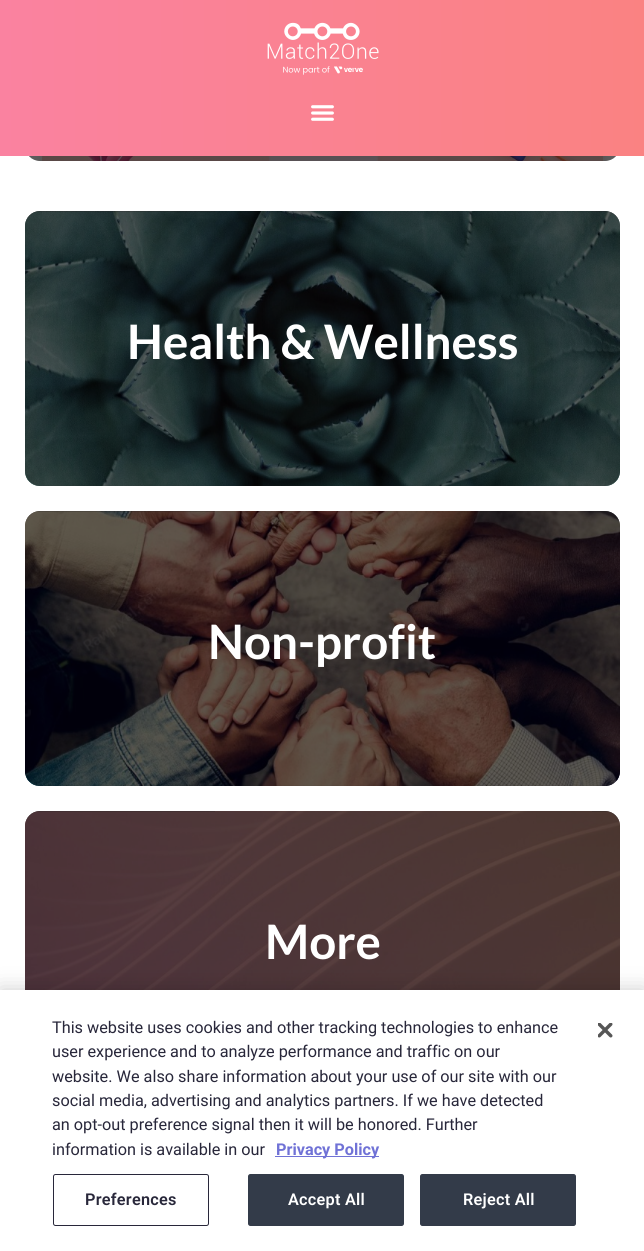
import math
import cairo



def draw_spaced(context, x, y, s, letter, word):
    context.move_to(x, y)
    for ch in s:
        context.show_text(ch)
        context.rel_move_to(letter + word * (ch == ' '), 0)


def rounded_rect(context, x, y, w, h, r):
    context.new_sub_path()
    for i, (u, v) in enumerate([(x + w - r, y + h - r), (x + r, y + h - r), (x + r, y + r), (x + w - r, y + r)]):
        context.arc(u, v, r, i * math.pi / 2, (i + 1) * math.pi / 2)
    context.close_path()


def draw_shadow(context, x, y, w, h, r, blur, alpha):
    context.push_group_with_content(cairo.Content.ALPHA)
    context.set_operator(cairo.Operator.SOURCE)
    for i in range(15, -16, -2):
        e = blur * i / 6
        if min(w, h) + 2 * e > 0:
            context.set_source_rgba(0, 0, 0, alpha * math.erfc((i - 1) / 8.5) / 2)
            rounded_rect(context, x - e, y - e, w + 2 * e, h + 2 * e, max(0, min(r + e + blur * .6, min(w, h) / 2 + e)))
            context.fill()
    context.mask(context.pop_group())


def draw_image(context, path, x, y, w, h):
    context.save()
    context.set_source_surface(cairo.ImageSurface.create_from_png(path), x, y)
    context.rectangle(x, y, w, h)
    context.fill()
    context.restore()


def draw(context):
    context.set_source_rgb(1, 1, 1)
    context.paint()
    draw_image(context, "images/3.png", 28, 156, 589, 5)
    context.set_source_rgba(2 / 255, 1 / 255, 1 / 255, 0.63)
    rounded_rect(context, 25, -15, 595, 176, 15)
    context.fill()
    gradient = cairo.LinearGradient(0, 78, 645, 78)
    gradient.add_color_stop_rgba(0, 250 / 255, 130 / 255, 160 / 255, 1)
    gradient.add_color_stop_rgba(1, 250 / 255, 130 / 255, 130 / 255, 1)
    context.set_source(gradient)
    context.rectangle(0, 0, 644, 156)
    context.fill()
    draw_image(context, "images/1.png", 267, 22, 112, 53)
    draw_image(context, "images/2.png", 311, 105, 23, 16)
    context.set_source_rgb(96 / 255, 95 / 255, 95 / 255)
    rounded_rect(context, 25, 211, 595, 275, 15)
    context.fill()
    draw_image(context, "images/4.png", 25, 211, 595, 275)
    context.set_source_rgba(2 / 255, 1 / 255, 1 / 255, 0.63)
    rounded_rect(context, 25, 211, 595, 275, 15)
    context.fill()
    context.set_source_rgb(96 / 255, 95 / 255, 95 / 255)
    rounded_rect(context, 25, 511, 595, 275, 15)
    context.fill()
    draw_image(context, "images/5.png", 25, 511, 595, 275)
    context.set_source_rgba(2 / 255, 1 / 255, 1 / 255, 0.63)
    rounded_rect(context, 25, 511, 595, 275, 15)
    context.fill()
    context.set_source_rgb(96 / 255, 95 / 255, 95 / 255)
    rounded_rect(context, 25, 811, 595, 275, 15)
    context.fill()
    draw_image(context, "images/6.png", 25, 811, 595, 179)
    context.set_source_rgba(2 / 255, 1 / 255, 1 / 255, 0.63)
    rounded_rect(context, 25, 811, 595, 275, 15)
    context.fill()
    context.set_source_rgb(0, 0, 0)
    draw_shadow(context, 0, 990, 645, 261, 0, 11, 0.2)
    context.set_source_rgb(1, 1, 1)
    context.rectangle(0, 990, 644, 261)
    context.fill()
    context.set_source_rgb(112 / 255, 114 / 255, 214 / 255)
    context.rectangle(275, 1156, 104, 1)
    context.fill()
    rounded_rect(context, 53.5, 1174.5, 155, 51, 2)
    context.set_source_rgb(40 / 255, 39 / 255, 58 / 255)
    context.set_line_width(1)
    context.stroke()
    context.set_source_rgb(51 / 255, 59 / 255, 73 / 255)
    rounded_rect(context, 248.5, 1174.5, 155, 51, 2)
    context.fill_preserve()
    context.stroke()
    rounded_rect(context, 420.5, 1174.5, 155, 51, 2)
    context.fill_preserve()
    context.stroke()
    draw_image(context, "images/7.png", 598, 1023, 15, 15)
    context.select_font_face("Lato", cairo.FontSlant.NORMAL, cairo.FontWeight.BOLD)
    context.set_font_size(47.5)
    context.set_source_rgb(1, 1, 1)
    context.move_to(127, 359)
    context.show_text("Health & Wellness")
    context.move_to(208, 659)
    context.show_text("Non-profit")
    context.move_to(265, 959)
    context.show_text("More")
    context.select_font_face("Roboto")
    context.set_font_size(16.25)
    context.set_source_rgb(40 / 255, 39 / 255, 58 / 255)
    context.move_to(52, 1033)
    context.show_text("This website uses cookies and other tracking technologies to enhance")
    context.move_to(52, 1057)
    context.show_text("user experience and to analyze performance and traffic on our")
    context.move_to(52, 1082)
    context.show_text("website. We also share information about your use of our site with our")
    context.move_to(52, 1106)
    context.show_text("social media, advertising and analytics partners. If we have detected")
    context.move_to(52, 1130)
    context.show_text("an opt-out preference signal then it will be honored. Further")
    context.move_to(52, 1155)
    context.show_text("information is available in our")
    context.select_font_face("Roboto", cairo.FontSlant.NORMAL, cairo.FontWeight.BOLD)
    context.set_source_rgb(112 / 255, 114 / 255, 214 / 255)
    context.move_to(276, 1155)
    context.show_text("Privacy Policy")
    context.select_font_face("Roboto SemiBold")
    context.set_source_rgb(40 / 255, 39 / 255, 58 / 255)
    draw_spaced(context, 85, 1205, "Preferences", 0.25, 0)
    context.set_source_rgb(1, 1, 1)
    draw_spaced(context, 288, 1205, "Accept All", 0.25, 0)
    draw_spaced(context, 463, 1205, "Reject All", 0.25, 0)


surface = cairo.ImageSurface(cairo.Format.RGB24, 644, 1251)
context = cairo.Context(surface)
options = cairo.FontOptions()
options.set_hint_metrics(cairo.HintMetrics.OFF)
options.set_hint_style(cairo.HintStyle.NONE)
context.set_font_options(options)
context.set_miter_limit(4)
draw(context)
surface.write_to_png("out.png")
